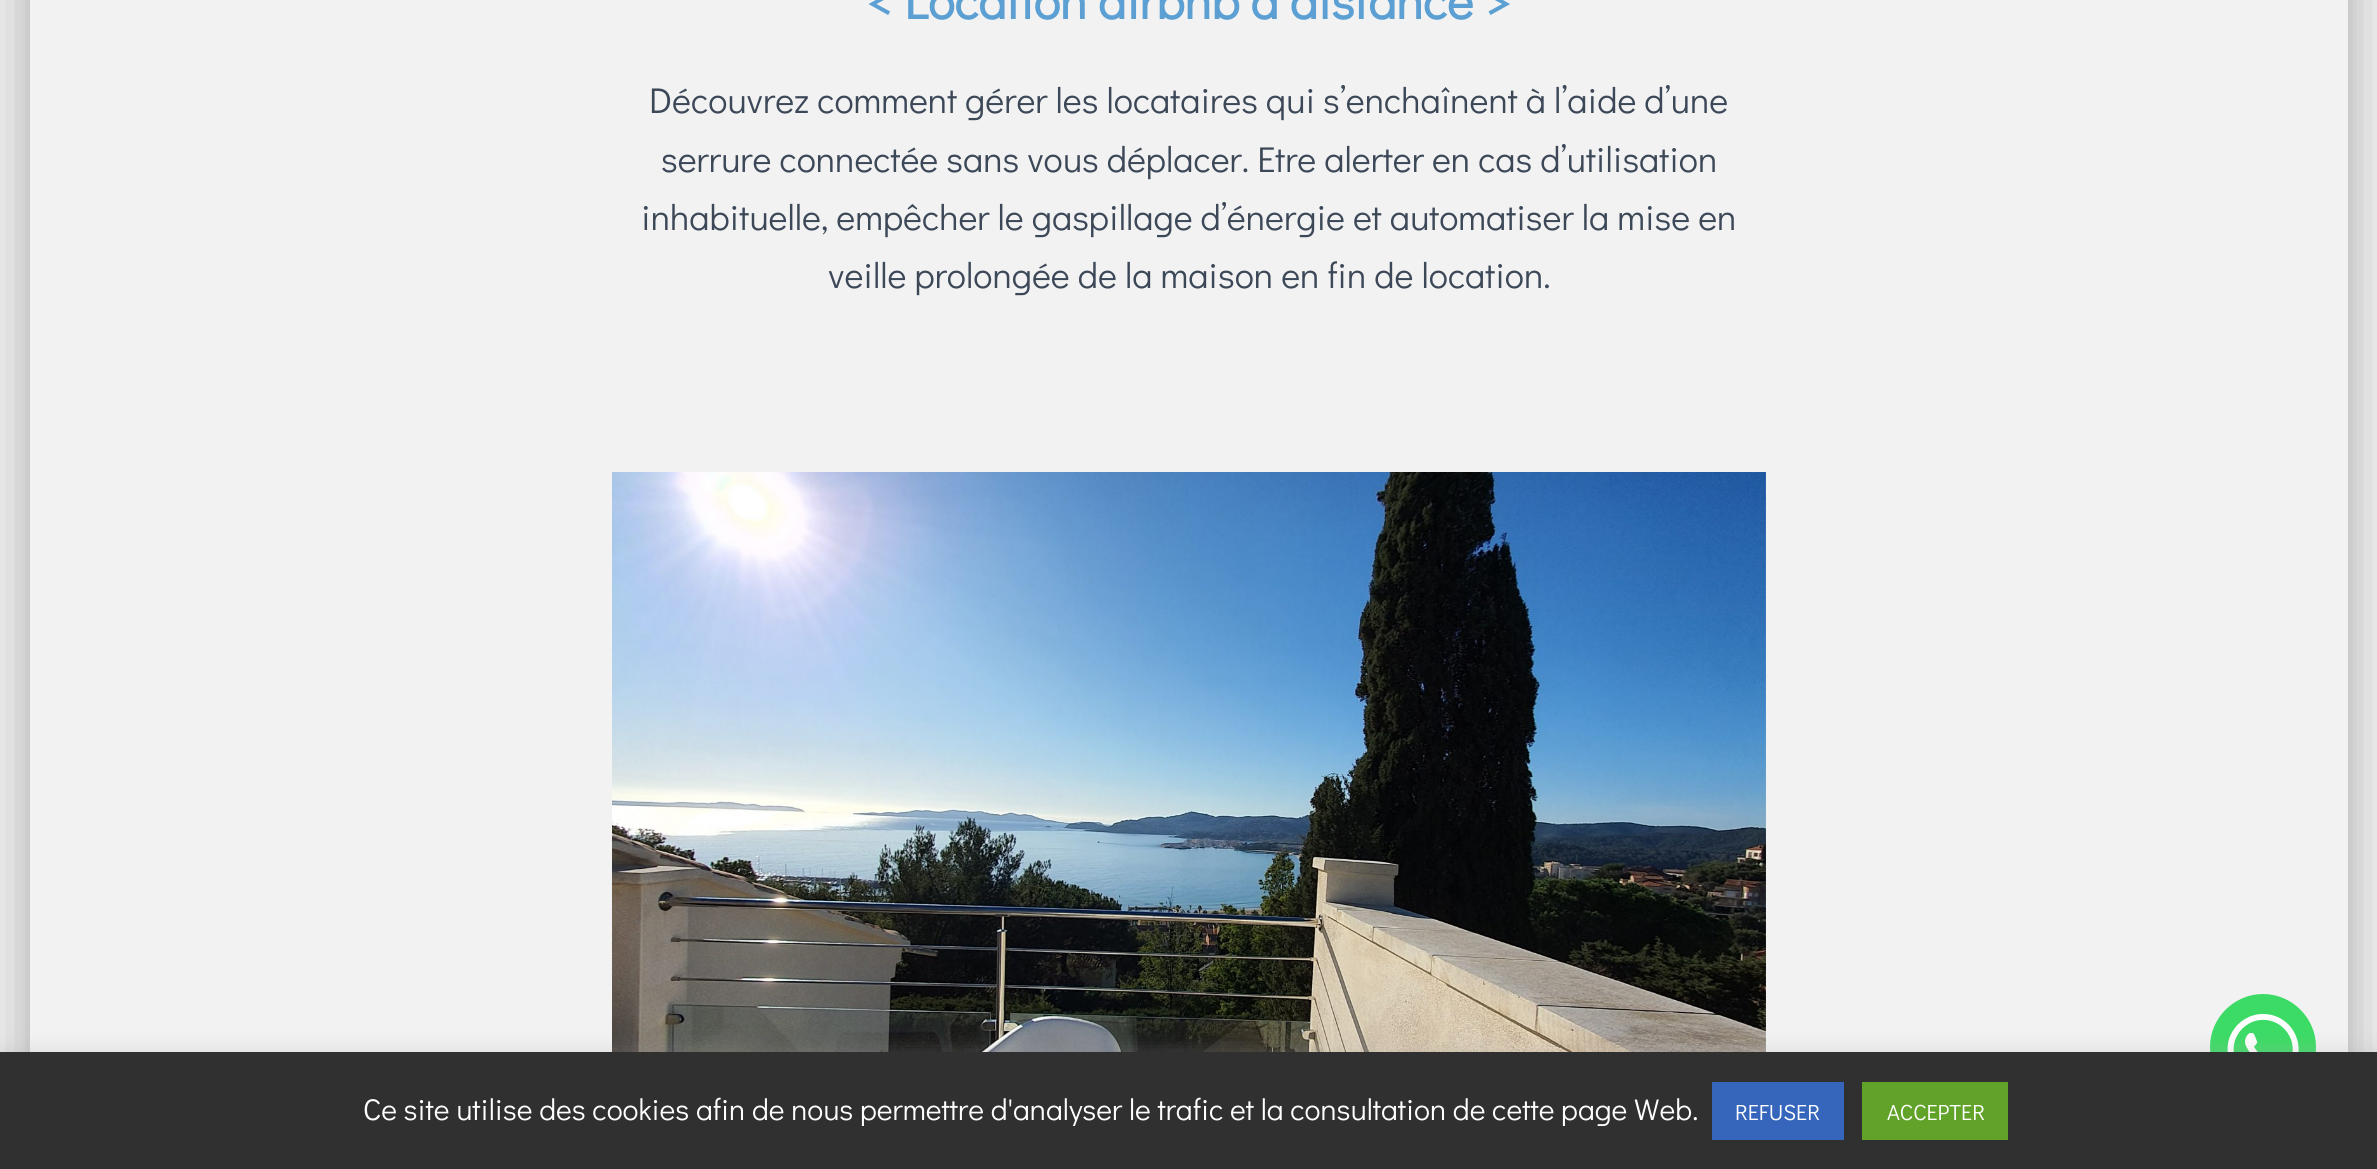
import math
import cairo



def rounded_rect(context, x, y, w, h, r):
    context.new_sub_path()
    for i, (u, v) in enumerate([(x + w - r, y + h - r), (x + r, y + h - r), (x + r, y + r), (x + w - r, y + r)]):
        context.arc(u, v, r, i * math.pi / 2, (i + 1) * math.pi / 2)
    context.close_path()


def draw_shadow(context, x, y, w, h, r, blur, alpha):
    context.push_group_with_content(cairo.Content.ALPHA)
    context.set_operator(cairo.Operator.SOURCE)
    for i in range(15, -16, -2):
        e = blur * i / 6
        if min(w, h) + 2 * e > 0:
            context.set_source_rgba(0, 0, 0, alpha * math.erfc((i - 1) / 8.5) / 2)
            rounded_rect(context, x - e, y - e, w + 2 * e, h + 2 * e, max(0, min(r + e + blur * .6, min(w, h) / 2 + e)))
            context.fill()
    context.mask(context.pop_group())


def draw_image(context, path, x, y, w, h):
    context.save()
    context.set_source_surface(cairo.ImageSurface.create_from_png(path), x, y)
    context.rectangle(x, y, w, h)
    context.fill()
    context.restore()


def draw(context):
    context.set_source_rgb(242 / 255, 242 / 255, 242 / 255)
    context.paint()
    context.set_source_rgb(0, 0, 0)
    draw_shadow(context, 40, -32, 2298, 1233, 2, 10, 0.2)
    draw_shadow(context, 20, -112, 2338, 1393, 22, 30, 0.12)
    draw_shadow(context, 26, -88, 2326, 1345, 16, 24, 0.14)
    context.set_source_rgb(242 / 255, 242 / 255, 242 / 255)
    context.rectangle(30, 0, 2318, 1052)
    context.fill()
    draw_image(context, "images/1.png", 612, 472, 1154, 580)
    context.set_source_rgb(59 / 255, 219 / 255, 101 / 255)
    context.new_path()
    context.move_to(2263, 994)
    context.curve_to(2292, 994, 2316, 1018, 2316, 1047)
    context.curve_to(2316, 1076, 2292, 1100, 2263, 1100)
    context.curve_to(2234, 1100, 2210, 1076, 2210, 1047)
    context.curve_to(2210, 1018, 2234, 994, 2263, 994)
    context.close_path()
    context.fill()
    draw_image(context, "images/2.png", 2227, 1014, 72, 38)
    context.set_source_rgb(172 / 255, 171 / 255, 171 / 255)
    draw_shadow(context, 0, 1050, 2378, 118, 0, 10, 0.3)
    context.set_source_rgb(48 / 255, 48 / 255, 48 / 255)
    context.rectangle(0, 1052, 2377, 117)
    context.fill()
    context.set_source_rgb(53 / 255, 102 / 255, 187 / 255)
    context.rectangle(1712, 1082, 132, 58)
    context.fill()
    context.set_source_rgb(97 / 255, 162 / 255, 41 / 255)
    context.rectangle(1862, 1082, 146, 58)
    context.fill()
    context.select_font_face("Didact Gothic", cairo.FontSlant.NORMAL, cairo.FontWeight.BOLD)
    context.set_font_size(50)
    context.set_source_rgb(91 / 255, 159 / 255, 211 / 255)
    context.move_to(868, 19)
    context.show_text("< Location airbnb à distance >")
    context.select_font_face("Didact Gothic")
    context.set_font_size(36)
    context.set_source_rgb(60 / 255, 72 / 255, 88 / 255)
    context.move_to(649, 113)
    context.show_text("Découvrez comment gérer les locataires qui s’enchaînent à l’aide d’une")
    context.move_to(661, 172)
    context.show_text("serrure connectée sans vous déplacer. Etre alerter en cas d’utilisation")
    context.move_to(641, 230)
    context.show_text("inhabituelle, empêcher le gaspillage d’énergie et automatiser la mise en")
    context.move_to(828, 288)
    context.show_text("veille prolongée de la maison en fin de location.")
    context.set_font_size(30)
    context.set_source_rgb(1, 1, 1)
    context.move_to(363, 1120)
    context.show_text("Ce site utilise des cookies afin de nous permettre d'analyser le trafic et la consultation de cette page Web.")
    context.set_font_size(22)
    context.move_to(1735, 1120)
    context.show_text("REFUSER")
    context.move_to(1887, 1120)
    context.show_text("ACCEPTER")


surface = cairo.ImageSurface(cairo.Format.RGB24, 2377, 1169)
context = cairo.Context(surface)
options = cairo.FontOptions()
options.set_hint_metrics(cairo.HintMetrics.OFF)
options.set_hint_style(cairo.HintStyle.NONE)
context.set_font_options(options)
context.set_miter_limit(4)
draw(context)
surface.write_to_png("out.png")
